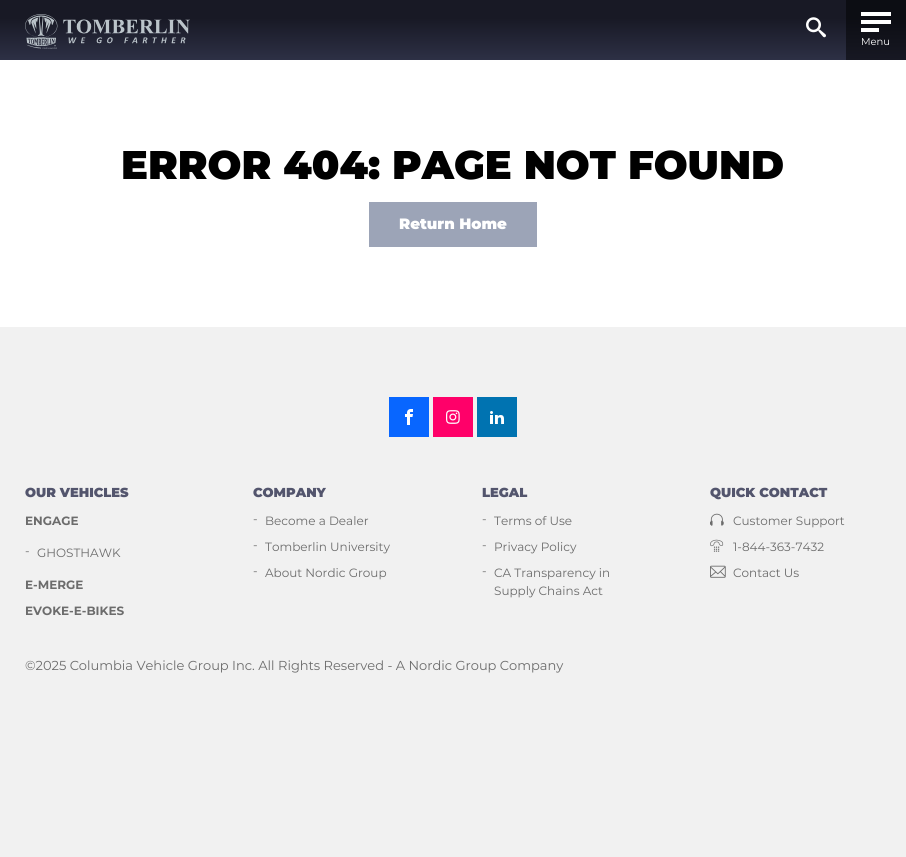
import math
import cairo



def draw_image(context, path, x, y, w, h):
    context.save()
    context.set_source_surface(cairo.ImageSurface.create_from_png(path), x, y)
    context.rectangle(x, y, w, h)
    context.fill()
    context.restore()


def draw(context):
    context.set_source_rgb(241 / 255, 241 / 255, 241 / 255)
    context.paint()
    gradient = cairo.LinearGradient(453, 0, 453, 60)
    gradient.add_color_stop_rgba(0.3, 24 / 255, 25 / 255, 37 / 255, 1)
    gradient.add_color_stop_rgba(1, 45 / 255, 48 / 255, 69 / 255, 1)
    context.set_source(gradient)
    context.rectangle(0, 0, 846, 60)
    context.fill()
    gradient = cairo.LinearGradient(453, 0, 453, 60)
    gradient.add_color_stop_rgba(0.3, 12 / 255, 13 / 255, 19 / 255, 1)
    gradient.add_color_stop_rgba(1, 23 / 255, 24 / 255, 35 / 255, 1)
    context.set_source(gradient)
    context.rectangle(846, 0, 60, 60)
    context.fill()
    draw_image(context, "images/1.png", 25, 14, 165, 35)
    draw_image(context, "images/2.png", 806, 17, 20, 21)
    context.set_source_rgb(1, 1, 1)
    context.rectangle(861, 12, 30, 4)
    context.fill()
    context.rectangle(861, 20, 30, 4)
    context.fill()
    context.rectangle(861, 28, 18, 4)
    context.fill()
    context.rectangle(0, 60, 906, 267)
    context.fill()
    context.set_source_rgb(156 / 255, 164 / 255, 183 / 255)
    context.rectangle(369, 202, 168, 45)
    context.fill()
    context.set_source_rgb(8 / 255, 102 / 255, 1)
    context.rectangle(389, 397, 40, 40)
    context.fill()
    draw_image(context, "images/3.png", 405, 409, 8, 16)
    context.set_source_rgb(1, 0, 105 / 255)
    context.rectangle(433, 397, 40, 40)
    context.fill()
    draw_image(context, "images/4.png", 446, 410, 14, 14)
    context.set_source_rgb(0, 115 / 255, 177 / 255)
    context.rectangle(477, 397, 40, 40)
    context.fill()
    draw_image(context, "images/5.png", 490, 411, 14, 13)
    draw_image(context, "images/6.png", 710, 513, 14, 13)
    draw_image(context, "images/7.png", 710, 539, 14, 13)
    draw_image(context, "images/8.png", 710, 565, 16, 13)
    context.select_font_face("Montserrat")
    context.set_font_size(10)
    context.set_source_rgb(1, 1, 1)
    context.move_to(861, 45)
    context.show_text("Menu")
    context.select_font_face("Montserrat Black")
    context.set_font_size(40)
    context.set_source_rgb(0, 0, 0)
    context.move_to(121, 179)
    context.show_text("ERROR 404: PAGE NOT FOUND")
    context.set_font_size(15)
    context.set_source_rgb(1, 1, 1)
    context.move_to(399, 229)
    context.show_text("Return Home")
    context.set_font_size(13)
    context.set_source_rgb(83 / 255, 85 / 255, 109 / 255)
    context.move_to(25, 497)
    context.show_text("OUR VEHICLES")
    context.select_font_face("Montserrat", cairo.FontSlant.NORMAL, cairo.FontWeight.BOLD)
    context.set_font_size(12)
    context.set_source_rgb(108 / 255, 108 / 255, 108 / 255)
    context.move_to(25, 525)
    context.show_text("ENGAGE")
    context.select_font_face("Montserrat")
    context.move_to(25, 555)
    context.show_text("-")
    context.move_to(37, 557)
    context.show_text("GHOSTHAWK")
    context.select_font_face("Montserrat", cairo.FontSlant.NORMAL, cairo.FontWeight.BOLD)
    context.move_to(25, 589)
    context.show_text("E-MERGE")
    context.move_to(25, 615)
    context.show_text("EVOKE-E-BIKES")
    context.select_font_face("Montserrat Black")
    context.set_font_size(13)
    context.set_source_rgb(83 / 255, 85 / 255, 109 / 255)
    context.move_to(253, 497)
    context.show_text("COMPANY")
    context.select_font_face("Montserrat")
    context.set_font_size(12)
    context.set_source_rgb(108 / 255, 108 / 255, 108 / 255)
    context.move_to(253, 523)
    context.show_text("-")
    context.move_to(265, 525)
    context.show_text("Become a Dealer")
    context.move_to(253, 549)
    context.show_text("-")
    context.move_to(265, 551)
    context.show_text("Tomberlin University")
    context.move_to(253, 575)
    context.show_text("-")
    context.move_to(265, 577)
    context.show_text("About Nordic Group")
    context.select_font_face("Montserrat Black")
    context.set_font_size(13)
    context.set_source_rgb(83 / 255, 85 / 255, 109 / 255)
    context.move_to(482, 497)
    context.show_text("LEGAL")
    context.select_font_face("Montserrat")
    context.set_font_size(12)
    context.set_source_rgb(108 / 255, 108 / 255, 108 / 255)
    context.move_to(482, 523)
    context.show_text("-")
    context.move_to(494, 525)
    context.show_text("Terms of Use")
    context.move_to(482, 549)
    context.show_text("-")
    context.move_to(494, 551)
    context.show_text("Privacy Policy")
    context.move_to(482, 575)
    context.show_text("-")
    context.move_to(494, 577)
    context.show_text("CA Transparency in")
    context.move_to(494, 595)
    context.show_text("Supply Chains Act")
    context.select_font_face("Montserrat Black")
    context.set_font_size(13)
    context.set_source_rgb(83 / 255, 85 / 255, 109 / 255)
    context.move_to(710, 497)
    context.show_text("QUICK CONTACT")
    context.select_font_face("Montserrat")
    context.set_font_size(12)
    context.set_source_rgb(108 / 255, 108 / 255, 108 / 255)
    context.move_to(733, 525)
    context.show_text("Customer Support")
    context.move_to(733, 551)
    context.show_text("1-844-363-7432")
    context.move_to(733, 577)
    context.show_text("Contact Us")
    context.set_font_size(13)
    context.move_to(25, 670)
    context.show_text("©2025 Columbia Vehicle Group Inc. All Rights Reserved - A Nordic Group Company")


surface = cairo.ImageSurface(cairo.Format.RGB24, 906, 857)
context = cairo.Context(surface)
options = cairo.FontOptions()
options.set_hint_metrics(cairo.HintMetrics.OFF)
options.set_hint_style(cairo.HintStyle.NONE)
context.set_font_options(options)
context.set_miter_limit(4)
draw(context)
surface.write_to_png("out.png")
